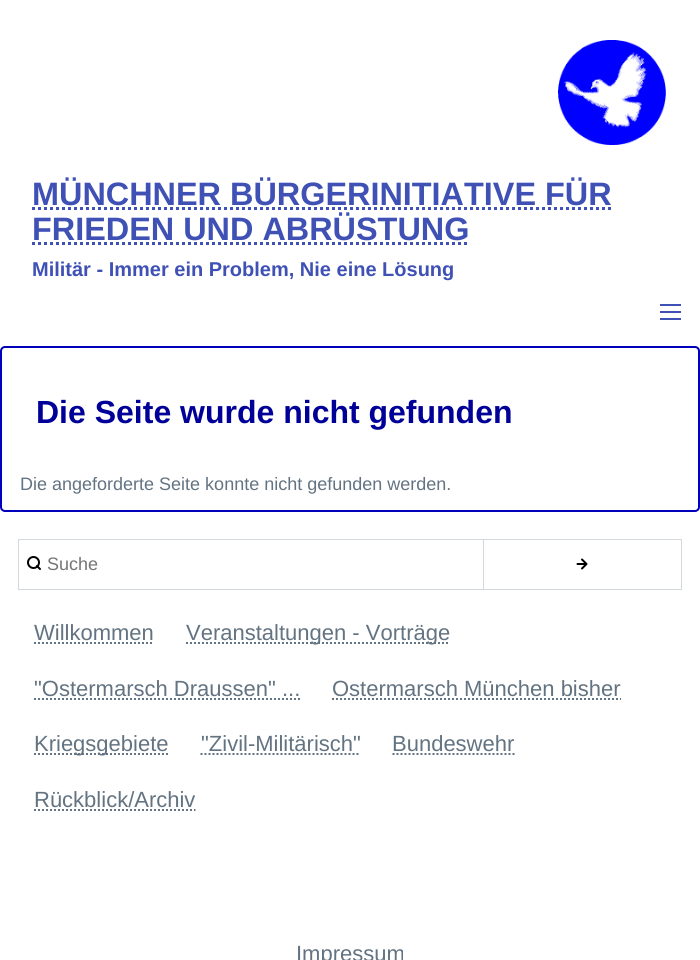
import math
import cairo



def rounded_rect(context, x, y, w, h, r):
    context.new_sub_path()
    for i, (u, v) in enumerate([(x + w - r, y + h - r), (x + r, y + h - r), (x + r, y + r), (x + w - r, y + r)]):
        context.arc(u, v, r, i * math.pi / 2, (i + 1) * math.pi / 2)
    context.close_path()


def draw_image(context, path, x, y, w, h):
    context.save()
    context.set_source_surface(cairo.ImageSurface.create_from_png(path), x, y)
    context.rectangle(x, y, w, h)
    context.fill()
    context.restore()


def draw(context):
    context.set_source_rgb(1, 1, 1)
    context.paint()
    draw_image(context, "images/1.png", 558, 40, 108, 105)
    context.new_path()
    context.move_to(32, 208.5)
    context.line_to(611.5, 208.5)
    context.set_source_rgb(63 / 255, 81 / 255, 181 / 255)
    context.set_line_width(3)
    context.set_dash([3, 3])
    context.stroke()
    context.new_path()
    context.move_to(32, 243.5)
    context.line_to(469.5, 243.5)
    context.stroke()
    context.rectangle(660, 311, 21, 2)
    context.fill()
    context.rectangle(660, 304, 21, 2)
    context.fill()
    context.rectangle(660, 318, 21, 2)
    context.fill()
    rounded_rect(context, 1, 347, 698, 164, 4)
    context.set_source_rgb(0, 0, 187 / 255)
    context.set_line_width(2)
    context.set_dash([])
    context.stroke()
    context.arc(33.5, 562.5, 5.5, 0, 2 * math.pi)
    context.set_source_rgb(0, 0, 0)
    context.stroke()
    context.new_path()
    context.move_to(40, 569)
    context.line_to(37, 566)
    context.set_line_cap(cairo.LineCap.ROUND)
    context.set_line_join(cairo.LineJoin.ROUND)
    context.stroke()
    context.set_source_rgb(211 / 255, 216 / 255, 221 / 255)
    context.rectangle(18, 539, 465, 1)
    context.fill()
    context.rectangle(18, 589, 465, 1)
    context.fill()
    context.rectangle(18, 539, 1, 51)
    context.fill()
    context.new_path()
    context.move_to(577.5, 564)
    context.line_to(586, 564)
    context.move_to(582, 559.5)
    context.line_to(586.5, 564)
    context.line_to(582, 568.5)
    context.set_source_rgb(0, 0, 0)
    context.stroke()
    context.rectangle(483.5, 539.5, 198, 50)
    context.set_source_rgb(211 / 255, 216 / 255, 221 / 255)
    context.set_line_width(1)
    context.set_line_cap(cairo.LineCap.BUTT)
    context.set_line_join(cairo.LineJoin.MITER)
    context.stroke()
    context.new_path()
    context.move_to(34, 643)
    context.line_to(154, 643)
    context.set_source_rgb(99 / 255, 115 / 255, 129 / 255)
    context.set_line_width(2)
    context.set_dash([2, 2])
    context.stroke()
    context.new_path()
    context.move_to(186, 643)
    context.line_to(450, 643)
    context.stroke()
    context.new_path()
    context.move_to(34, 699)
    context.line_to(300, 699)
    context.stroke()
    context.new_path()
    context.move_to(332, 699)
    context.line_to(621, 699)
    context.stroke()
    context.new_path()
    context.move_to(34, 754)
    context.line_to(168.5, 754)
    context.stroke()
    context.new_path()
    context.move_to(200.5, 754)
    context.line_to(360.5, 754)
    context.stroke()
    context.new_path()
    context.move_to(392.5, 754)
    context.line_to(514.5, 754)
    context.stroke()
    context.new_path()
    context.move_to(34, 810)
    context.line_to(195.5, 810)
    context.stroke()
    context.select_font_face("Liberation Sans", cairo.FontSlant.NORMAL, cairo.FontWeight.BOLD)
    context.set_font_size(32.4)
    context.set_source_rgb(63 / 255, 81 / 255, 181 / 255)
    context.move_to(32, 205)
    context.show_text("MÜNCHNER BÜRGERINITIATIVE FÜR")
    context.move_to(32, 240)
    context.show_text("FRIEDEN UND ABRÜSTUNG")
    context.set_font_size(20)
    context.move_to(32, 276)
    context.show_text("Militär - Immer ein Problem, Nie eine Lösung")
    context.set_font_size(32)
    context.set_source_rgb(0, 0, 153 / 255)
    context.move_to(36, 423)
    context.show_text("Die Seite wurde nicht gefunden")
    context.select_font_face("Liberation Sans")
    context.set_font_size(18)
    context.set_source_rgb(99 / 255, 115 / 255, 129 / 255)
    context.move_to(20, 490)
    context.show_text("Die angeforderte Seite konnte nicht gefunden werden.")
    context.set_source_rgb(117 / 255, 117 / 255, 117 / 255)
    context.move_to(47, 570)
    context.show_text("Suche")
    context.set_font_size(22)
    context.set_source_rgb(99 / 255, 115 / 255, 129 / 255)
    context.move_to(34, 640)
    context.show_text("Willkommen")
    context.move_to(186, 640)
    context.show_text("Veranstaltungen - Vorträge")
    context.move_to(34, 696)
    context.show_text("\"Ostermarsch Draussen\" ...")
    context.move_to(332, 696)
    context.show_text("Ostermarsch München bisher")
    context.move_to(34, 751)
    context.show_text("Kriegsgebiete")
    context.move_to(201, 751)
    context.show_text("\"Zivil-Militärisch\"")
    context.move_to(392, 751)
    context.show_text("Bundeswehr")
    context.move_to(34, 807)
    context.show_text("Rückblick/Archiv")
    context.move_to(296, 961)
    context.show_text("Impressum")


surface = cairo.ImageSurface(cairo.Format.RGB24, 700, 960)
context = cairo.Context(surface)
options = cairo.FontOptions()
options.set_hint_metrics(cairo.HintMetrics.OFF)
options.set_hint_style(cairo.HintStyle.NONE)
context.set_font_options(options)
context.set_miter_limit(4)
draw(context)
surface.write_to_png("out.png")
